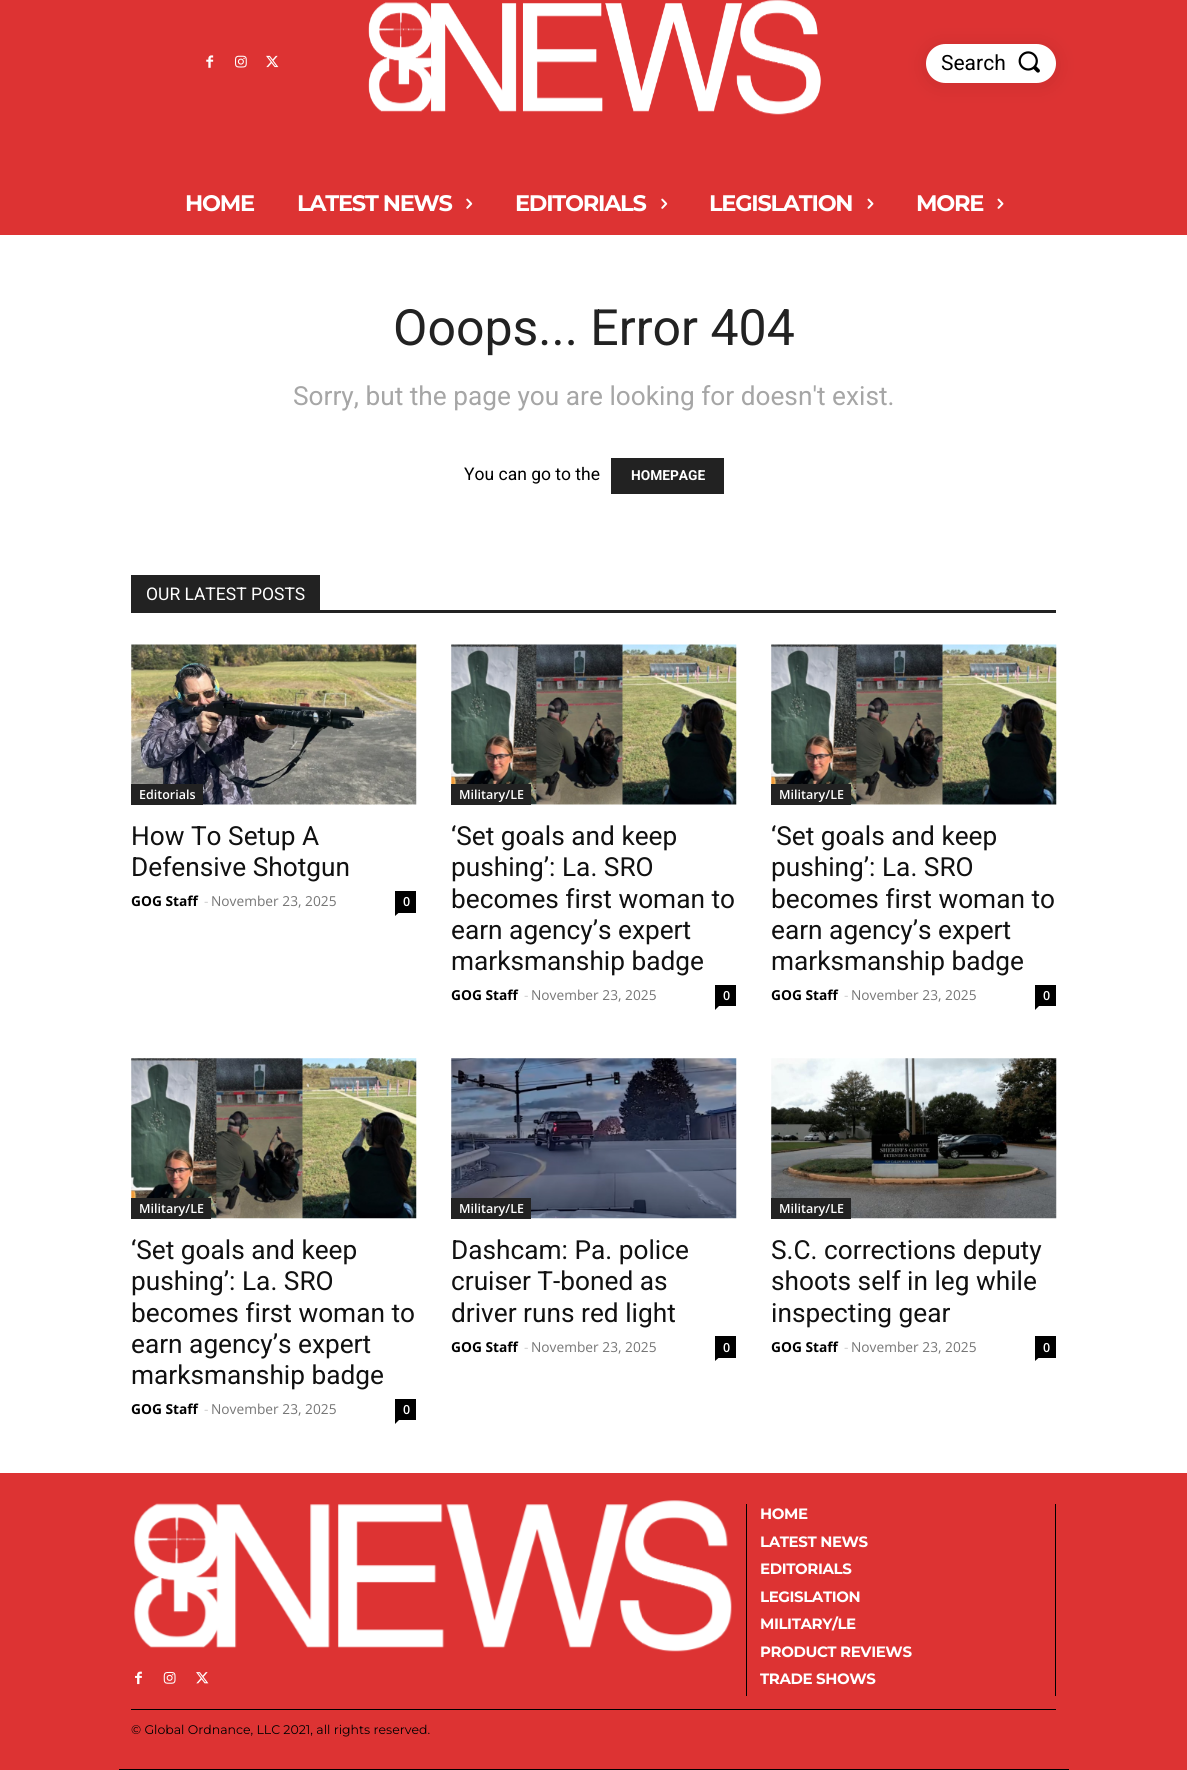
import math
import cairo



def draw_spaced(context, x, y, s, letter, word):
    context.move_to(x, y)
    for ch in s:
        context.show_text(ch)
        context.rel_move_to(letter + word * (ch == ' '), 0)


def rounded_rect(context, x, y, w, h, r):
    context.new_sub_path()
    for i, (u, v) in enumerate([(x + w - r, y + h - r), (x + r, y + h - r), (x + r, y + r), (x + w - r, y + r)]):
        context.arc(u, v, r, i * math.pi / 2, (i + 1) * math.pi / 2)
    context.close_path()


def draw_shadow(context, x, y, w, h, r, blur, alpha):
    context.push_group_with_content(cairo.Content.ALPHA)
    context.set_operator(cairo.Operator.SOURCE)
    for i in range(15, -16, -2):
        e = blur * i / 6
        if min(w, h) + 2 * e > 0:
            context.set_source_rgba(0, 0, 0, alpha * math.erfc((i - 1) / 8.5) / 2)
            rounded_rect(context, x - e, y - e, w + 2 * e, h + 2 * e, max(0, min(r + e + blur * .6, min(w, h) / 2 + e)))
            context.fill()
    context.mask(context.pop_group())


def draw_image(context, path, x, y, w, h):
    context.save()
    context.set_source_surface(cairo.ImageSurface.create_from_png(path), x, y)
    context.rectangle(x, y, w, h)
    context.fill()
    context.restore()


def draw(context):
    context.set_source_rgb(1, 1, 1)
    context.paint()
    context.set_source_rgb(221 / 255, 51 / 255, 51 / 255)
    context.rectangle(0, 0, 1187, 235)
    context.fill()
    draw_image(context, "images/1.png", 206, 55, 8, 13)
    draw_image(context, "images/2.png", 235, 55, 12, 13)
    draw_image(context, "images/3.png", 266, 55, 13, 13)
    draw_image(context, "images/4.png", 368, 0, 453, 115)
    context.set_source_rgb(0, 0, 0)
    draw_shadow(context, 926, 46, 130, 39, 19.5, 10, 0.1)
    context.set_source_rgb(1, 1, 1)
    rounded_rect(context, 926, 44, 130, 39, 19.5)
    context.fill()
    draw_image(context, "images/5.png", 1018, 51, 22, 22)
    draw_image(context, "images/6.png", 466, 198, 7, 11)
    draw_image(context, "images/6.png", 661, 198, 7, 11)
    draw_image(context, "images/7.png", 867, 198, 7, 11)
    draw_image(context, "images/7.png", 997, 198, 7, 11)
    context.set_source_rgb(34 / 255, 34 / 255, 34 / 255)
    context.rectangle(611, 458, 113, 36)
    context.fill()
    context.rectangle(131, 610, 925, 3)
    context.fill()
    context.rectangle(131, 575, 189, 35)
    context.fill()
    draw_image(context, "images/8.png", 131, 644, 286, 161)
    context.rectangle(131, 784, 72, 21)
    context.fill()
    context.set_source_rgb(0, 0, 0)
    context.rectangle(395, 891, 21, 22)
    context.fill()
    context.new_path()
    context.move_to(395, 912.5)
    context.line_to(399, 912.5)
    context.line_to(395, 916)
    context.close_path()
    context.fill()
    draw_image(context, "images/9.png", 451, 644, 286, 161)
    context.set_source_rgb(34 / 255, 34 / 255, 34 / 255)
    context.rectangle(451, 784, 80, 21)
    context.fill()
    context.set_source_rgb(0, 0, 0)
    context.rectangle(715, 985, 21, 21)
    context.fill()
    context.new_path()
    context.move_to(715, 1006)
    context.line_to(719, 1006)
    context.line_to(715, 1010)
    context.close_path()
    context.fill()
    draw_image(context, "images/10.png", 771, 644, 286, 161)
    context.set_source_rgb(34 / 255, 34 / 255, 34 / 255)
    context.rectangle(771, 784, 80, 21)
    context.fill()
    context.set_source_rgb(0, 0, 0)
    context.rectangle(1035, 985, 21, 21)
    context.fill()
    context.new_path()
    context.move_to(1035, 1006)
    context.line_to(1039, 1006)
    context.line_to(1035, 1010)
    context.close_path()
    context.fill()
    draw_image(context, "images/11.png", 131, 1058, 286, 161)
    context.set_source_rgb(34 / 255, 34 / 255, 34 / 255)
    context.rectangle(131, 1198, 80, 21)
    context.fill()
    context.set_source_rgb(0, 0, 0)
    context.rectangle(395, 1399, 21, 21)
    context.fill()
    context.new_path()
    context.move_to(395, 1420)
    context.line_to(399, 1420)
    context.line_to(395, 1424)
    context.close_path()
    context.fill()
    draw_image(context, "images/12.png", 451, 1058, 286, 161)
    context.set_source_rgb(34 / 255, 34 / 255, 34 / 255)
    context.rectangle(451, 1198, 80, 21)
    context.fill()
    context.set_source_rgb(0, 0, 0)
    context.rectangle(715, 1336, 21, 22)
    context.fill()
    context.new_path()
    context.move_to(715, 1357.5)
    context.line_to(719, 1357.5)
    context.line_to(715, 1361)
    context.close_path()
    context.fill()
    draw_image(context, "images/13.png", 771, 1058, 286, 161)
    context.set_source_rgb(34 / 255, 34 / 255, 34 / 255)
    context.rectangle(771, 1198, 80, 21)
    context.fill()
    context.set_source_rgb(0, 0, 0)
    context.rectangle(1035, 1336, 21, 22)
    context.fill()
    context.new_path()
    context.move_to(1035, 1357.5)
    context.line_to(1039, 1357.5)
    context.line_to(1035, 1361)
    context.close_path()
    context.fill()
    context.set_source_rgb(221 / 255, 51 / 255, 51 / 255)
    context.rectangle(0, 1473, 1187, 297)
    context.fill()
    context.set_source_rgb(0, 0, 0)
    context.rectangle(131, 1709, 925, 1)
    context.fill()
    context.rectangle(746, 1504, 1, 192)
    context.fill()
    draw_image(context, "images/14.png", 134, 1500, 598, 152)
    draw_image(context, "images/15.png", 135, 1671, 7, 14)
    draw_image(context, "images/16.png", 163, 1671, 13, 13)
    draw_image(context, "images/17.png", 196, 1672, 13, 12)
    context.rectangle(1055, 1504, 1, 192)
    context.fill()
    context.rectangle(119, 1769, 950, 1)
    context.fill()
    context.select_font_face("Roboto")
    context.set_font_size(21)
    context.move_to(941, 70)
    context.show_text("Search")
    context.select_font_face("Montserrat Thin")
    context.set_font_size(22.5)
    context.set_source_rgb(1, 1, 1)
    draw_spaced(context, 185, 211, "HOME", -1.25, 0)
    draw_spaced(context, 297, 211, "LATEST NEWS", -1.25, 0)
    draw_spaced(context, 515, 211, "EDITORIALS", -1.25, 0)
    draw_spaced(context, 709, 211, "LEGISLATION", -1.25, 0)
    draw_spaced(context, 916, 211, "MORE", -1.25, 0)
    context.select_font_face("Roboto")
    context.set_font_size(50)
    context.set_source_rgb(34 / 255, 34 / 255, 34 / 255)
    context.move_to(393, 345)
    context.show_text("Ooops... Error 404")
    context.set_font_size(26.25)
    context.set_source_rgb(166 / 255, 166 / 255, 166 / 255)
    context.move_to(293, 405)
    context.show_text("Sorry, but the page you are looking for doesn't exist.")
    context.set_font_size(17.5)
    context.set_source_rgb(0, 0, 0)
    context.move_to(464, 480)
    context.show_text("You can go to the")
    context.select_font_face("Roboto", cairo.FontSlant.NORMAL, cairo.FontWeight.BOLD)
    context.set_font_size(13.75)
    context.set_source_rgb(1, 1, 1)
    context.move_to(631, 480)
    context.show_text("HOMEPAGE")
    context.select_font_face("Roboto")
    context.set_font_size(17.5)
    context.move_to(146, 600)
    context.show_text("OUR LATEST POSTS")
    context.select_font_face("Open Sans SemiBold")
    context.set_font_size(12.5)
    context.move_to(139, 799)
    context.show_text("Editorials")
    context.select_font_face("Roboto")
    context.set_font_size(26.25)
    context.set_source_rgb(17 / 255, 17 / 255, 17 / 255)
    context.move_to(131, 845)
    context.show_text("How To Setup A")
    context.move_to(131, 876)
    context.show_text("Defensive Shotgun")
    context.select_font_face("Open Sans", cairo.FontSlant.NORMAL, cairo.FontWeight.BOLD)
    context.set_font_size(13.75)
    context.set_source_rgb(0, 0, 0)
    context.move_to(131, 906)
    context.show_text("GOG Staff")
    context.select_font_face("Open Sans")
    context.set_source_rgb(204 / 255, 204 / 255, 204 / 255)
    context.move_to(204, 906)
    context.show_text("-")
    context.set_source_rgb(118 / 255, 118 / 255, 118 / 255)
    context.move_to(211, 906)
    context.show_text("November 23, 2025")
    context.select_font_face("Open Sans SemiBold")
    context.set_font_size(12.5)
    context.set_source_rgb(1, 1, 1)
    context.move_to(403, 906)
    context.show_text("0")
    context.move_to(459, 799)
    context.show_text("Military/LE")
    context.select_font_face("Roboto")
    context.set_font_size(26.25)
    context.set_source_rgb(17 / 255, 17 / 255, 17 / 255)
    context.move_to(451, 845)
    context.show_text("‘Set goals and keep")
    context.move_to(451, 876)
    context.show_text("pushing’: La. SRO")
    context.move_to(451, 908)
    context.show_text("becomes first woman to")
    context.move_to(451, 939)
    context.show_text("earn agency’s expert")
    context.move_to(451, 970)
    context.show_text("marksmanship badge")
    context.select_font_face("Open Sans", cairo.FontSlant.NORMAL, cairo.FontWeight.BOLD)
    context.set_font_size(13.75)
    context.set_source_rgb(0, 0, 0)
    context.move_to(451, 1000)
    context.show_text("GOG Staff")
    context.select_font_face("Open Sans")
    context.set_source_rgb(204 / 255, 204 / 255, 204 / 255)
    context.move_to(524, 1000)
    context.show_text("-")
    context.set_source_rgb(118 / 255, 118 / 255, 118 / 255)
    context.move_to(531, 1000)
    context.show_text("November 23, 2025")
    context.select_font_face("Open Sans SemiBold")
    context.set_font_size(12.5)
    context.set_source_rgb(1, 1, 1)
    context.move_to(723, 1000)
    context.show_text("0")
    context.move_to(779, 799)
    context.show_text("Military/LE")
    context.select_font_face("Roboto")
    context.set_font_size(26.25)
    context.set_source_rgb(17 / 255, 17 / 255, 17 / 255)
    context.move_to(771, 845)
    context.show_text("‘Set goals and keep")
    context.move_to(771, 876)
    context.show_text("pushing’: La. SRO")
    context.move_to(771, 908)
    context.show_text("becomes first woman to")
    context.move_to(771, 939)
    context.show_text("earn agency’s expert")
    context.move_to(771, 970)
    context.show_text("marksmanship badge")
    context.select_font_face("Open Sans", cairo.FontSlant.NORMAL, cairo.FontWeight.BOLD)
    context.set_font_size(13.75)
    context.set_source_rgb(0, 0, 0)
    context.move_to(771, 1000)
    context.show_text("GOG Staff")
    context.select_font_face("Open Sans")
    context.set_source_rgb(204 / 255, 204 / 255, 204 / 255)
    context.move_to(844, 1000)
    context.show_text("-")
    context.set_source_rgb(118 / 255, 118 / 255, 118 / 255)
    context.move_to(851, 1000)
    context.show_text("November 23, 2025")
    context.select_font_face("Open Sans SemiBold")
    context.set_font_size(12.5)
    context.set_source_rgb(1, 1, 1)
    context.move_to(1043, 1000)
    context.show_text("0")
    context.move_to(139, 1213)
    context.show_text("Military/LE")
    context.select_font_face("Roboto")
    context.set_font_size(26.25)
    context.set_source_rgb(17 / 255, 17 / 255, 17 / 255)
    context.move_to(131, 1259)
    context.show_text("‘Set goals and keep")
    context.move_to(131, 1290)
    context.show_text("pushing’: La. SRO")
    context.move_to(131, 1322)
    context.show_text("becomes first woman to")
    context.move_to(131, 1353)
    context.show_text("earn agency’s expert")
    context.move_to(131, 1384)
    context.show_text("marksmanship badge")
    context.select_font_face("Open Sans", cairo.FontSlant.NORMAL, cairo.FontWeight.BOLD)
    context.set_font_size(13.75)
    context.set_source_rgb(0, 0, 0)
    context.move_to(131, 1414)
    context.show_text("GOG Staff")
    context.select_font_face("Open Sans")
    context.set_source_rgb(204 / 255, 204 / 255, 204 / 255)
    context.move_to(204, 1414)
    context.show_text("-")
    context.set_source_rgb(118 / 255, 118 / 255, 118 / 255)
    context.move_to(211, 1414)
    context.show_text("November 23, 2025")
    context.select_font_face("Open Sans SemiBold")
    context.set_font_size(12.5)
    context.set_source_rgb(1, 1, 1)
    context.move_to(403, 1414)
    context.show_text("0")
    context.move_to(459, 1213)
    context.show_text("Military/LE")
    context.select_font_face("Roboto")
    context.set_font_size(26.25)
    context.set_source_rgb(17 / 255, 17 / 255, 17 / 255)
    context.move_to(451, 1259)
    context.show_text("Dashcam: Pa. police")
    context.move_to(451, 1290)
    context.show_text("cruiser T-boned as")
    context.move_to(451, 1322)
    context.show_text("driver runs red light")
    context.select_font_face("Open Sans", cairo.FontSlant.NORMAL, cairo.FontWeight.BOLD)
    context.set_font_size(13.75)
    context.set_source_rgb(0, 0, 0)
    context.move_to(451, 1352)
    context.show_text("GOG Staff")
    context.select_font_face("Open Sans")
    context.set_source_rgb(204 / 255, 204 / 255, 204 / 255)
    context.move_to(524, 1352)
    context.show_text("-")
    context.set_source_rgb(118 / 255, 118 / 255, 118 / 255)
    context.move_to(531, 1352)
    context.show_text("November 23, 2025")
    context.select_font_face("Open Sans SemiBold")
    context.set_font_size(12.5)
    context.set_source_rgb(1, 1, 1)
    context.move_to(723, 1352)
    context.show_text("0")
    context.move_to(779, 1213)
    context.show_text("Military/LE")
    context.select_font_face("Roboto")
    context.set_font_size(26.25)
    context.set_source_rgb(17 / 255, 17 / 255, 17 / 255)
    context.move_to(771, 1259)
    context.show_text("S.C. corrections deputy")
    context.move_to(771, 1290)
    context.show_text("shoots self in leg while")
    context.move_to(771, 1322)
    context.show_text("inspecting gear")
    context.select_font_face("Open Sans", cairo.FontSlant.NORMAL, cairo.FontWeight.BOLD)
    context.set_font_size(13.75)
    context.set_source_rgb(0, 0, 0)
    context.move_to(771, 1352)
    context.show_text("GOG Staff")
    context.select_font_face("Open Sans")
    context.set_source_rgb(204 / 255, 204 / 255, 204 / 255)
    context.move_to(844, 1352)
    context.show_text("-")
    context.set_source_rgb(118 / 255, 118 / 255, 118 / 255)
    context.move_to(851, 1352)
    context.show_text("November 23, 2025")
    context.select_font_face("Open Sans SemiBold")
    context.set_font_size(12.5)
    context.set_source_rgb(1, 1, 1)
    context.move_to(1043, 1352)
    context.show_text("0")
    context.select_font_face("Montserrat Thin")
    context.set_font_size(15)
    draw_spaced(context, 760, 1519, "HOME", -0.4, 0)
    draw_spaced(context, 760, 1547, "LATEST NEWS", -0.4, 0)
    draw_spaced(context, 760, 1574, "EDITORIALS", -0.4, 0)
    draw_spaced(context, 760, 1602, "LEGISLATION", -0.4, 0)
    draw_spaced(context, 760, 1629, "MILITARY/LE", -0.4, 0)
    draw_spaced(context, 760, 1657, "PRODUCT REVIEWS", -0.4, 0)
    draw_spaced(context, 760, 1684, "TRADE SHOWS", -0.4, 0)
    context.select_font_face("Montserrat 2 Thin")
    context.set_font_size(12.5)
    context.set_source_rgb(0, 0, 0)
    context.move_to(131, 1734)
    context.show_text("© Global Ordnance, LLC 2021, all rights reserved.")


surface = cairo.ImageSurface(cairo.Format.RGB24, 1187, 1770)
context = cairo.Context(surface)
options = cairo.FontOptions()
options.set_hint_metrics(cairo.HintMetrics.OFF)
options.set_hint_style(cairo.HintStyle.NONE)
context.set_font_options(options)
context.set_miter_limit(4)
draw(context)
surface.write_to_png("out.png")
